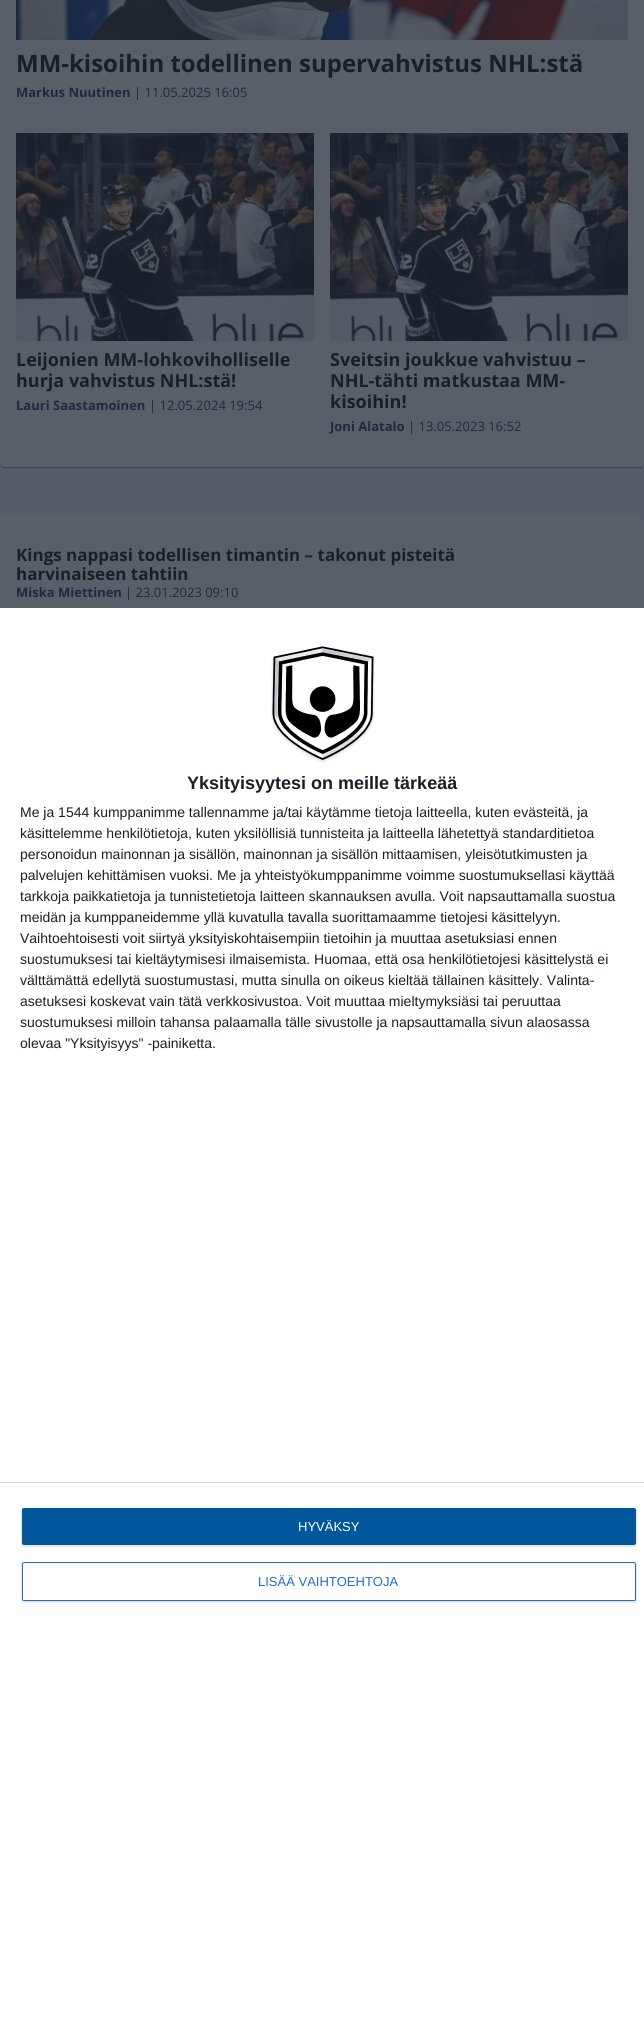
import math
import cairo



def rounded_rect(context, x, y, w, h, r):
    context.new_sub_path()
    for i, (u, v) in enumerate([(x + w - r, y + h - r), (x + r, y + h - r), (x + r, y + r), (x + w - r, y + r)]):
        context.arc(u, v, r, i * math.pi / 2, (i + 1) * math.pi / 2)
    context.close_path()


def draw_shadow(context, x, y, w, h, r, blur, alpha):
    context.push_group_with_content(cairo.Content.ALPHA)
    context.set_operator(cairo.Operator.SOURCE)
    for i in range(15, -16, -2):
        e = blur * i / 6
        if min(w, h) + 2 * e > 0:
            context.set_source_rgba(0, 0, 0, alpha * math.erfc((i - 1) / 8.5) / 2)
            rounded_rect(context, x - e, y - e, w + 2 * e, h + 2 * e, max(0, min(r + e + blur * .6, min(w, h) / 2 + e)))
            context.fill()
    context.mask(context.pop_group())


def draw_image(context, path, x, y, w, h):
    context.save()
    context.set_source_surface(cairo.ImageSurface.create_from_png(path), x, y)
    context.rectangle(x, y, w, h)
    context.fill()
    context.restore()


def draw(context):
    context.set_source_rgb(87 / 255, 93 / 255, 102 / 255)
    context.paint()
    context.set_source_rgb(33 / 255, 40 / 255, 52 / 255)
    draw_shadow(context, 0, -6, 644, 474, 4, 0.5, 0.5)
    context.set_source_rgb(89 / 255, 95 / 255, 103 / 255)
    rounded_rect(context, 0, -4, 644, 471, 4)
    context.fill()
    draw_image(context, "images/1.png", 16, 0, 612, 40)
    draw_image(context, "images/2.png", 16, 133, 298, 208)
    draw_image(context, "images/2.png", 330, 133, 298, 208)
    context.set_source_rgb(33 / 255, 40 / 255, 52 / 255)
    draw_shadow(context, 0, 516, 644, 1301, 4, 0.5, 0.5)
    context.set_source_rgb(89 / 255, 95 / 255, 103 / 255)
    rounded_rect(context, 0, 515, 644, 1301, 4)
    context.fill()
    context.set_source_rgb(1, 1, 1)
    context.rectangle(0, 608, 644, 1419)
    context.fill()
    draw_image(context, "images/3.png", 271, 646, 104, 117)
    context.set_source_rgb(216 / 255, 216 / 255, 216 / 255)
    context.rectangle(0, 1482, 644, 1)
    context.fill()
    context.set_source_rgb(0, 0, 0)
    draw_shadow(context, 21, 1508, 616, 39, 3, 0.5, 0.1)
    context.set_source_rgb(1 / 255, 87 / 255, 155 / 255)
    rounded_rect(context, 22, 1508, 614, 37, 2)
    context.fill()
    context.set_source_rgb(0, 0, 0)
    draw_shadow(context, 21, 1562, 616, 41, 3, 0.5, 0.1)
    context.set_source_rgb(1, 1, 1)
    rounded_rect(context, 22.5, 1562.5, 613, 38, 1.5)
    context.fill_preserve()
    context.set_source_rgb(32 / 255, 109 / 255, 197 / 255)
    context.set_line_width(1)
    context.stroke()
    context.select_font_face("Open Sans", cairo.FontSlant.NORMAL, cairo.FontWeight.BOLD)
    context.set_font_size(24)
    context.set_source_rgb(25 / 255, 31 / 255, 39 / 255)
    context.move_to(16, 72)
    context.show_text("MM-kisoihin todellinen supervahvistus NHL:stä")
    context.set_font_size(13)
    context.set_source_rgb(34 / 255, 39 / 255, 63 / 255)
    context.move_to(16, 97)
    context.show_text("Markus Nuutinen")
    context.select_font_face("Open Sans")
    context.set_source_rgb(33 / 255, 40 / 255, 52 / 255)
    context.move_to(134, 97)
    context.show_text("| 11.05.2025 16:05")
    context.select_font_face("Open Sans", cairo.FontSlant.NORMAL, cairo.FontWeight.BOLD)
    context.set_font_size(18)
    context.set_source_rgb(25 / 255, 31 / 255, 39 / 255)
    context.move_to(16, 366)
    context.show_text("Leijonien MM-lohkoviholliselle")
    context.move_to(16, 387)
    context.show_text("hurja vahvistus NHL:stä!")
    context.set_font_size(13)
    context.set_source_rgb(34 / 255, 39 / 255, 63 / 255)
    context.move_to(16, 410)
    context.show_text("Lauri Saastamoinen")
    context.select_font_face("Open Sans")
    context.set_source_rgb(33 / 255, 40 / 255, 52 / 255)
    context.move_to(149, 410)
    context.show_text("| 12.05.2024 19:54")
    context.select_font_face("Open Sans", cairo.FontSlant.NORMAL, cairo.FontWeight.BOLD)
    context.set_font_size(18)
    context.set_source_rgb(25 / 255, 31 / 255, 39 / 255)
    context.move_to(330, 366)
    context.show_text("Sveitsin joukkue vahvistuu –")
    context.move_to(330, 387)
    context.show_text("NHL-tähti matkustaa MM-")
    context.move_to(330, 408)
    context.show_text("kisoihin!")
    context.set_font_size(13)
    context.set_source_rgb(34 / 255, 39 / 255, 63 / 255)
    context.move_to(330, 431)
    context.show_text("Joni Alatalo")
    context.select_font_face("Open Sans")
    context.set_source_rgb(33 / 255, 40 / 255, 52 / 255)
    context.move_to(408, 431)
    context.show_text("| 13.05.2023 16:52")
    context.select_font_face("Open Sans", cairo.FontSlant.NORMAL, cairo.FontWeight.BOLD)
    context.set_font_size(17)
    context.set_source_rgb(25 / 255, 31 / 255, 39 / 255)
    context.move_to(16, 561)
    context.show_text("Kings nappasi todellisen timantin – takonut pisteitä")
    context.move_to(16, 580)
    context.show_text("harvinaiseen tahtiin")
    context.set_font_size(13)
    context.set_source_rgb(34 / 255, 39 / 255, 63 / 255)
    context.move_to(16, 597)
    context.show_text("Miska Miettinen")
    context.select_font_face("Open Sans")
    context.set_source_rgb(33 / 255, 40 / 255, 52 / 255)
    context.move_to(125, 597)
    context.show_text("| 23.01.2023 09:10")
    context.select_font_face("Liberation Sans", cairo.FontSlant.NORMAL, cairo.FontWeight.BOLD)
    context.set_font_size(18)
    context.set_source_rgb(25 / 255, 31 / 255, 39 / 255)
    context.move_to(187, 789)
    context.show_text("Yksityisyytesi on meille tärkeää")
    context.select_font_face("Liberation Sans")
    context.set_font_size(14)
    context.move_to(20, 817)
    context.show_text("Me ja 1544 kumppanimme tallennamme ja/tai käytämme tietoja laitteella, kuten evästeitä, ja")
    context.move_to(20, 838)
    context.show_text("käsittelemme henkilötietoja, kuten yksilöllisiä tunnisteita ja laitteella lähetettyä standarditietoa")
    context.move_to(20, 859)
    context.show_text("personoidun mainonnan ja sisällön, mainonnan ja sisällön mittaamisen, yleisötutkimusten ja")
    context.move_to(20, 880)
    context.show_text("palvelujen kehittämisen vuoksi. Me ja yhteistyökumppanimme voimme suostumuksellasi käyttää")
    context.move_to(20, 901)
    context.show_text("tarkkoja paikkatietoja ja tunnistetietoja laitteen skannauksen avulla. Voit napsauttamalla suostua")
    context.move_to(20, 922)
    context.show_text("meidän ja kumppaneidemme yllä kuvatulla tavalla suorittamaamme tietojesi käsittelyyn.")
    context.move_to(20, 943)
    context.show_text("Vaihtoehtoisesti voit siirtyä yksityiskohtaisempiin tietoihin ja muuttaa asetuksiasi ennen")
    context.move_to(20, 964)
    context.show_text("suostumuksesi tai kieltäytymisesi ilmaisemista. Huomaa, että osa henkilötietojesi käsittelystä ei")
    context.move_to(20, 985)
    context.show_text("välttämättä edellytä suostumustasi, mutta sinulla on oikeus kieltää tällainen käsittely. Valinta-")
    context.move_to(20, 1006)
    context.show_text("asetuksesi koskevat vain tätä verkkosivustoa. Voit muuttaa mieltymyksiäsi tai peruuttaa")
    context.move_to(20, 1027)
    context.show_text("suostumuksesi milloin tahansa palaamalla tälle sivustolle ja napsauttamalla sivun alaosassa")
    context.move_to(20, 1048)
    context.show_text("olevaa \"Yksityisyys\" -painiketta.")
    context.set_font_size(13)
    context.set_source_rgb(1, 1, 1)
    context.move_to(298, 1531)
    context.show_text("HYVÄKSY")
    context.set_source_rgb(32 / 255, 109 / 255, 197 / 255)
    context.move_to(258, 1586)
    context.show_text("LISÄÄ VAIHTOEHTOJA")


surface = cairo.ImageSurface(cairo.Format.RGB24, 644, 2027)
context = cairo.Context(surface)
options = cairo.FontOptions()
options.set_hint_metrics(cairo.HintMetrics.OFF)
options.set_hint_style(cairo.HintStyle.NONE)
context.set_font_options(options)
context.set_miter_limit(4)
draw(context)
surface.write_to_png("out.png")
